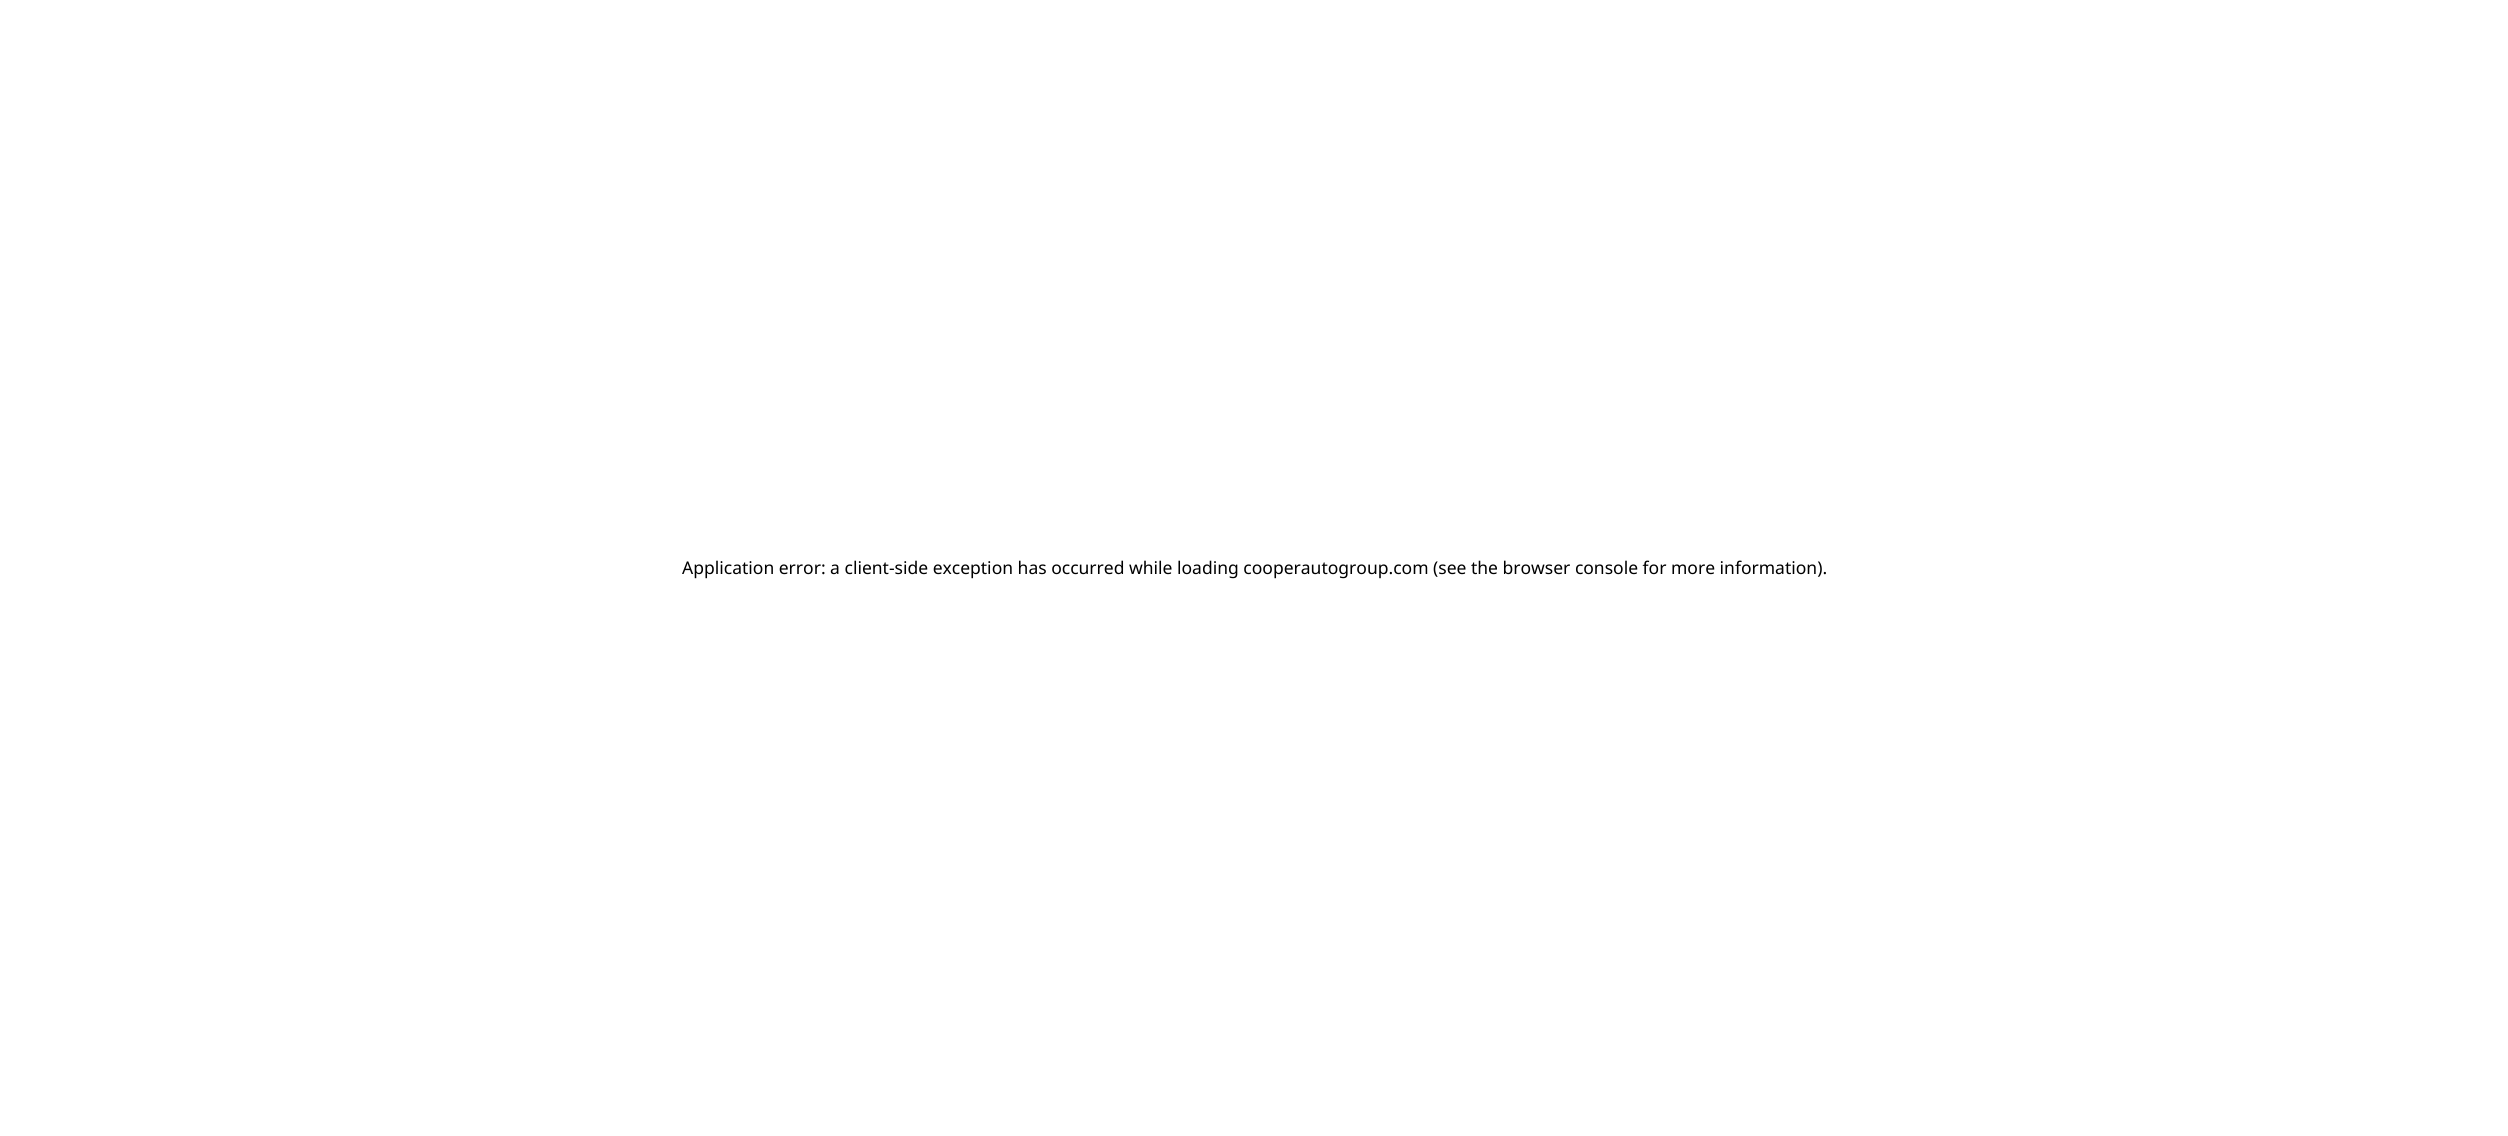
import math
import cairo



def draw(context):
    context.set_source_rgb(1, 1, 1)
    context.paint()
    context.select_font_face("Noto Sans")
    context.set_font_size(17.5)
    context.set_source_rgb(0, 0, 0)
    context.move_to(682, 574)
    context.show_text("Application error: a client-side exception has occurred while loading cooperautogroup.com (see the browser console for more information).")


surface = cairo.ImageSurface(cairo.Format.RGB24, 2508, 1136)
context = cairo.Context(surface)
options = cairo.FontOptions()
options.set_hint_metrics(cairo.HintMetrics.OFF)
options.set_hint_style(cairo.HintStyle.NONE)
context.set_font_options(options)
context.set_miter_limit(4)
draw(context)
surface.write_to_png("out.png")
